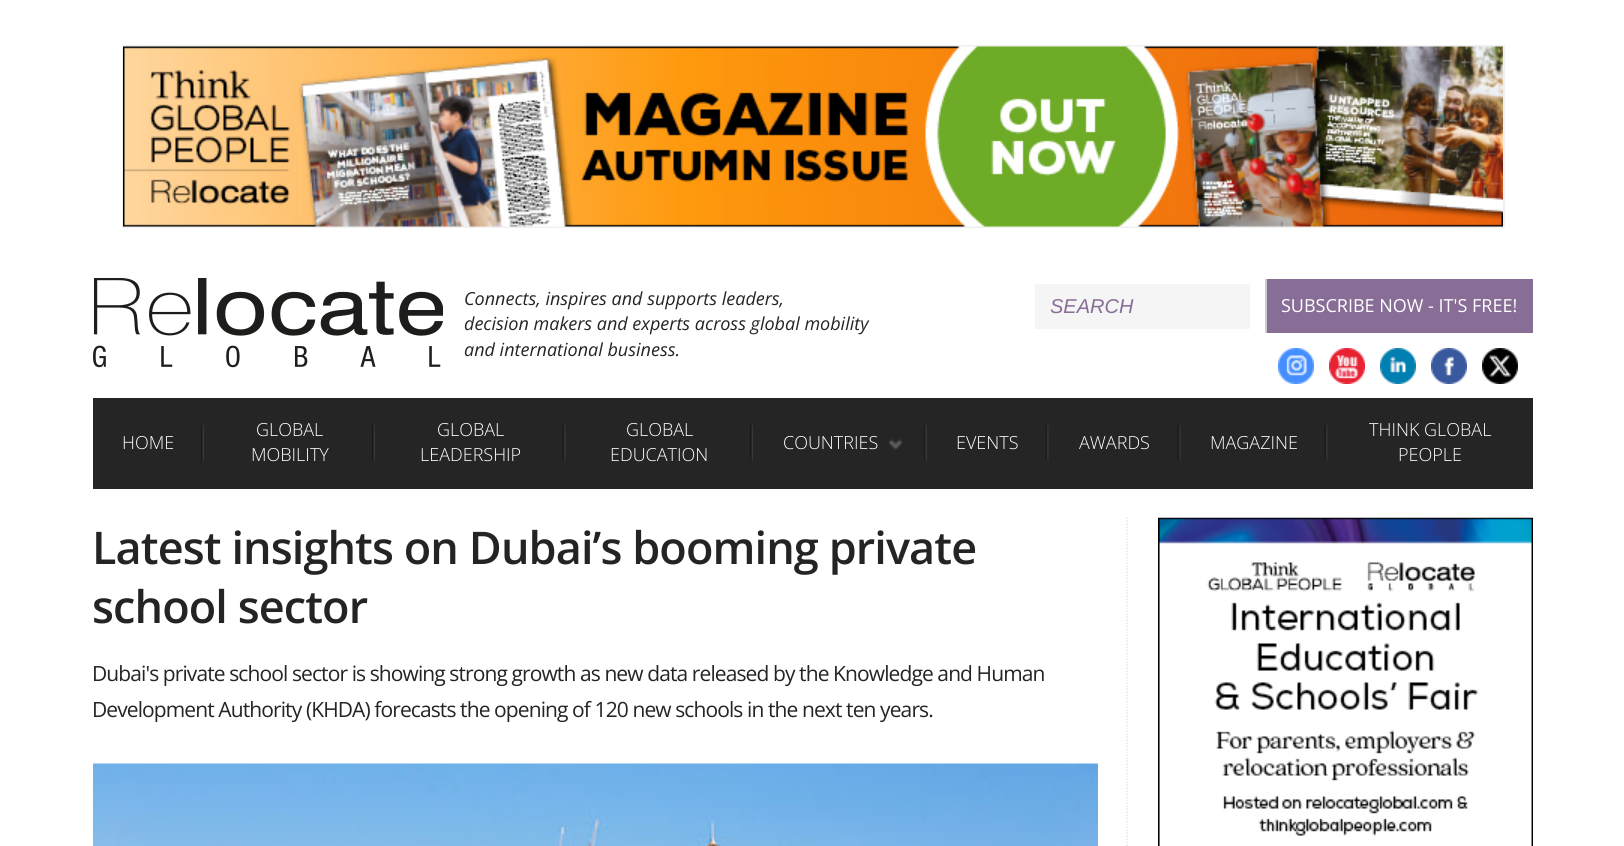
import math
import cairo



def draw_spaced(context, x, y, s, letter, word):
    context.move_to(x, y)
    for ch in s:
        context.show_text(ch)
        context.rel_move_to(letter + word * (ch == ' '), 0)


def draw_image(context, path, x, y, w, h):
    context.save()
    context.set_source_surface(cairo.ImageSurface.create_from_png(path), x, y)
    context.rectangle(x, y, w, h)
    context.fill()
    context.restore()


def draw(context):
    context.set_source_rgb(1, 1, 1)
    context.paint()
    context.rectangle(123, 46, 1381, 181)
    context.set_source_rgb(240 / 255, 240 / 255, 240 / 255)
    context.stroke()
    draw_image(context, "images/1.png", 123, 46, 1380, 181)
    draw_image(context, "images/2.png", 93, 278, 350, 90)
    context.set_source_rgb(245 / 255, 245 / 255, 245 / 255)
    context.rectangle(1035, 284, 215, 45)
    context.fill()
    context.set_source_rgb(136 / 255, 109 / 255, 151 / 255)
    context.rectangle(1267, 279, 266, 54)
    context.fill()
    context.set_source_rgb(204 / 255, 204 / 255, 204 / 255)
    context.rectangle(1265, 279, 2, 54)
    context.fill()
    draw_image(context, "images/3.png", 1278, 348, 36, 36)
    draw_image(context, "images/4.png", 1329, 348, 36, 36)
    draw_image(context, "images/5.png", 1380, 348, 36, 36)
    draw_image(context, "images/6.png", 1431, 348, 36, 36)
    draw_image(context, "images/7.png", 1482, 348, 36, 36)
    context.set_source_rgb(37 / 255, 37 / 255, 37 / 255)
    context.rectangle(93, 398, 1440, 91)
    context.fill()
    draw_image(context, "images/8.png", 201, 423, 3, 40)
    draw_image(context, "images/9.png", 372, 423, 3, 40)
    draw_image(context, "images/10.png", 562, 424, 4, 38)
    draw_image(context, "images/9.png", 750, 423, 3, 40)
    draw_image(context, "images/11.png", 888, 423, 39, 40)
    draw_image(context, "images/10.png", 1045, 424, 4, 38)
    draw_image(context, "images/10.png", 1177, 424, 4, 38)
    draw_image(context, "images/10.png", 1324, 424, 4, 38)
    context.new_path()
    context.move_to(1127, 517.5)
    context.line_to(1127, 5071.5)
    context.set_source_rgb(230 / 255, 230 / 255, 230 / 255)
    context.set_line_width(1.5)
    context.set_dash([1.5, 1.5])
    context.stroke()
    draw_image(context, "images/12.png", 93, 763, 1005, 83)
    draw_image(context, "images/13.png", 1158, 517, 375, 329)
    context.select_font_face("Open Sans", cairo.FontSlant.ITALIC)
    context.set_font_size(18)
    context.set_source_rgb(36 / 255, 36 / 255, 36 / 255)
    context.move_to(464, 305)
    context.show_text("Connects, inspires and supports leaders,")
    context.move_to(464, 330)
    context.show_text("decision makers and experts across global mobility")
    context.move_to(464, 356)
    context.show_text("and international business.")
    context.select_font_face("Liberation Sans", cairo.FontSlant.ITALIC)
    context.set_font_size(20)
    context.set_source_rgb(136 / 255, 109 / 255, 151 / 255)
    context.move_to(1050, 313)
    context.show_text("SEARCH")
    context.select_font_face("Open Sans")
    context.set_font_size(18)
    context.set_source_rgb(1, 1, 1)
    context.move_to(1281, 312)
    context.show_text("SUBSCRIBE NOW - IT'S FREE!")
    context.select_font_face("Open Sans Light")
    context.move_to(122, 449)
    context.show_text("HOME")
    context.move_to(256, 436)
    context.show_text("GLOBAL")
    context.move_to(251, 461)
    context.show_text("MOBILITY")
    context.move_to(437, 436)
    context.show_text("GLOBAL")
    context.move_to(420, 461)
    context.show_text("LEADERSHIP")
    context.move_to(626, 436)
    context.show_text("GLOBAL")
    context.move_to(610, 461)
    context.show_text("EDUCATION")
    context.move_to(783, 449)
    context.show_text("COUNTRIES")
    context.move_to(956, 449)
    context.show_text("EVENTS")
    context.move_to(1079, 449)
    context.show_text("AWARDS")
    context.move_to(1210, 449)
    context.show_text("MAGAZINE")
    context.move_to(1369, 436)
    context.show_text("THINK GLOBAL")
    context.move_to(1398, 461)
    context.show_text("PEOPLE")
    context.select_font_face("Open Sans SemiBold")
    context.set_font_size(45)
    context.set_source_rgb(36 / 255, 36 / 255, 36 / 255)
    draw_spaced(context, 92, 564, "Latest insights on Dubai’s booming private", -0.9, 0)
    draw_spaced(context, 92, 623, "school sector", -0.9, 0)
    context.select_font_face("Open Sans")
    context.set_font_size(21)
    draw_spaced(context, 92, 681, "Dubai's private school sector is showing strong growth as new data released by the Knowledge and Human", -0.9, 0)
    draw_spaced(context, 92, 717, "Development Authority (KHDA) forecasts the opening of 120 new schools in the next ten years.", -0.9, 0)


surface = cairo.ImageSurface(cairo.Format.RGB24, 1624, 846)
context = cairo.Context(surface)
options = cairo.FontOptions()
options.set_hint_metrics(cairo.HintMetrics.OFF)
options.set_hint_style(cairo.HintStyle.NONE)
context.set_font_options(options)
context.set_miter_limit(4)
draw(context)
surface.write_to_png("out.png")
